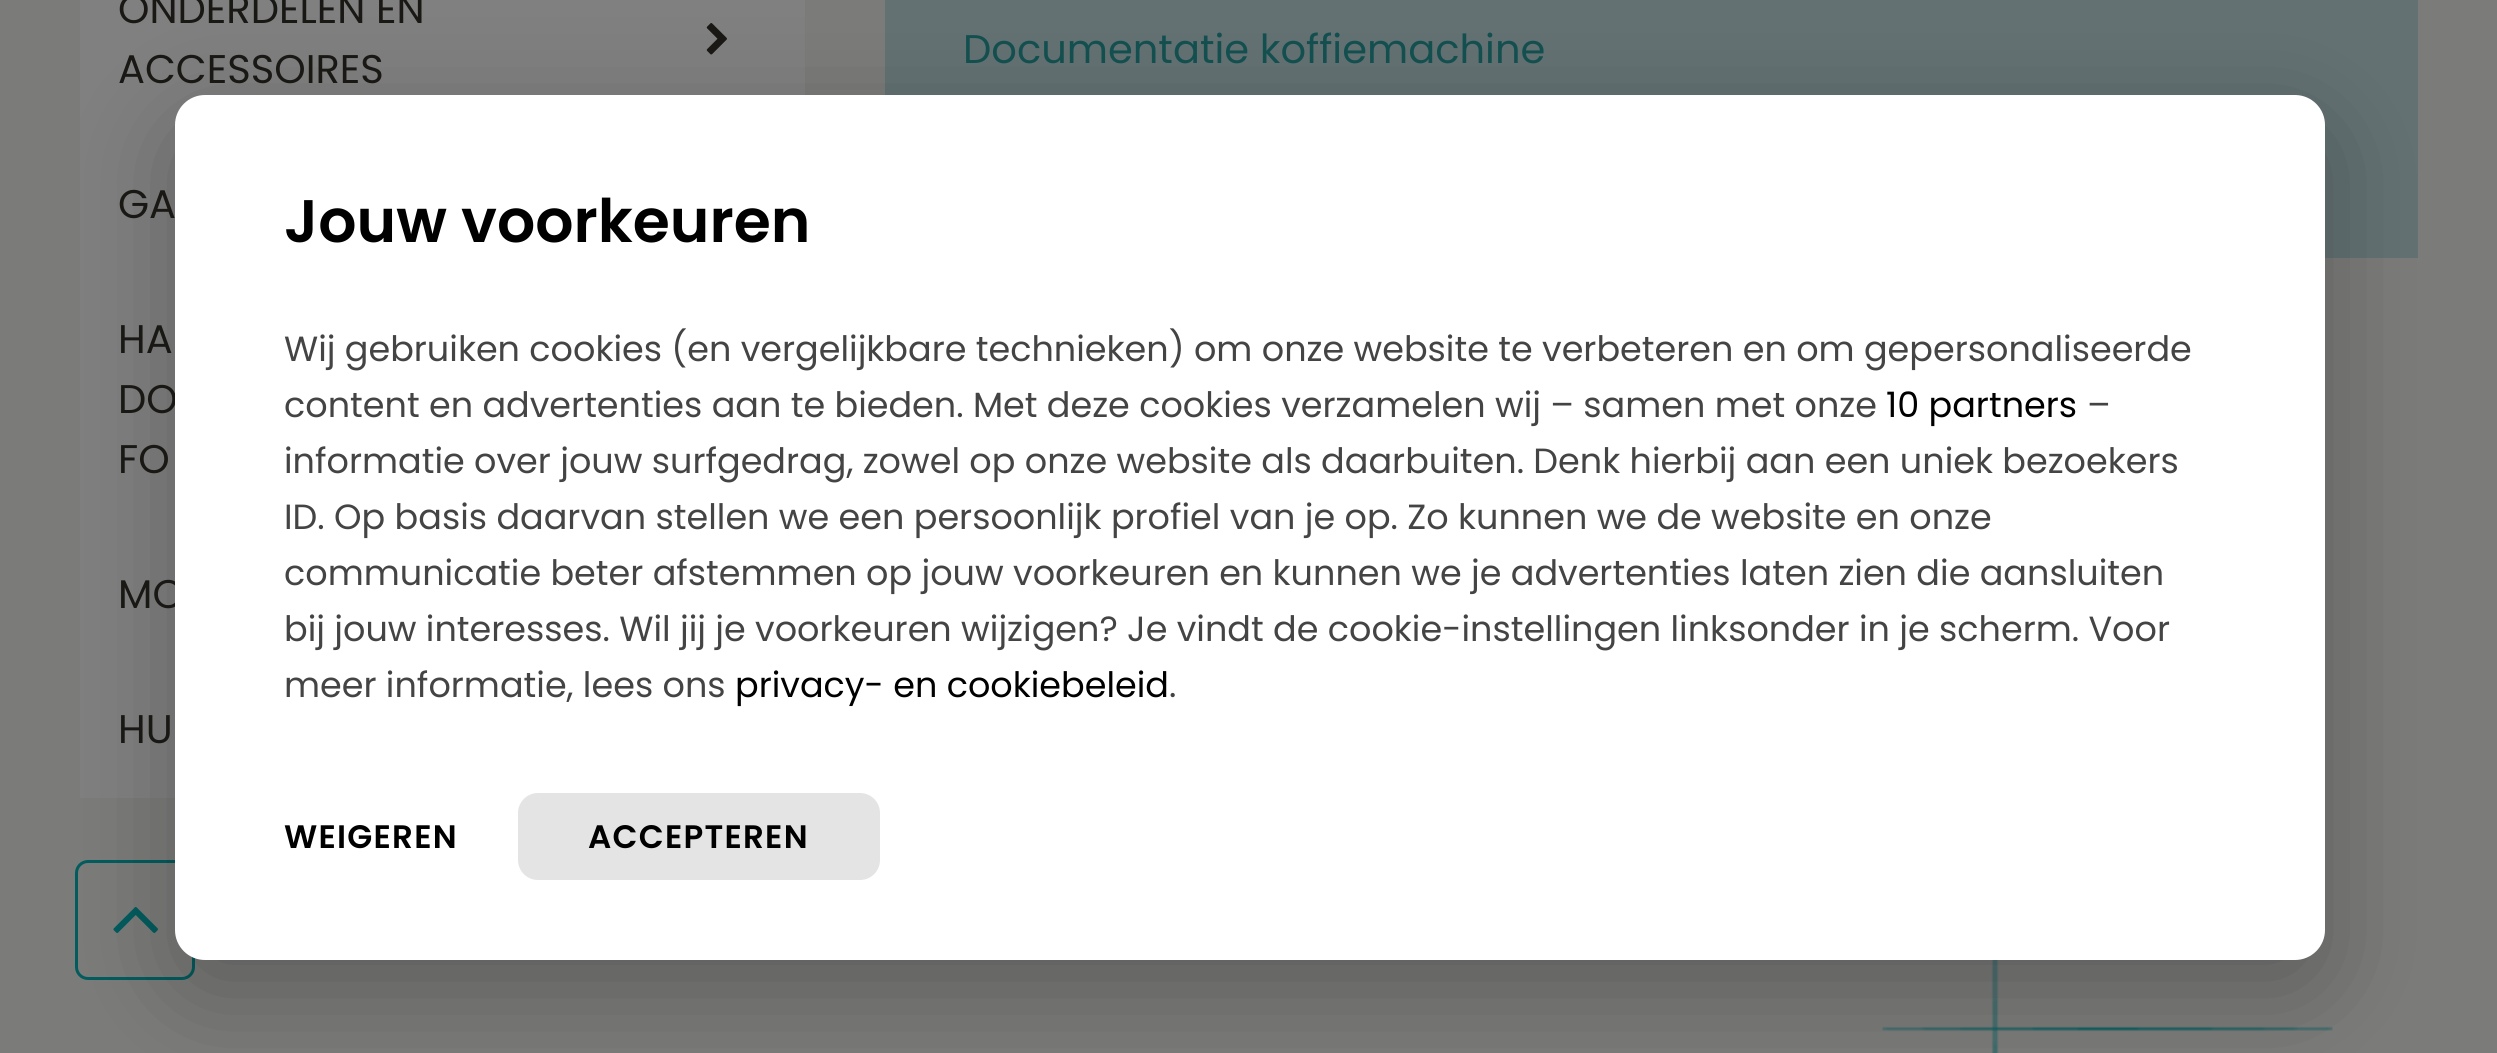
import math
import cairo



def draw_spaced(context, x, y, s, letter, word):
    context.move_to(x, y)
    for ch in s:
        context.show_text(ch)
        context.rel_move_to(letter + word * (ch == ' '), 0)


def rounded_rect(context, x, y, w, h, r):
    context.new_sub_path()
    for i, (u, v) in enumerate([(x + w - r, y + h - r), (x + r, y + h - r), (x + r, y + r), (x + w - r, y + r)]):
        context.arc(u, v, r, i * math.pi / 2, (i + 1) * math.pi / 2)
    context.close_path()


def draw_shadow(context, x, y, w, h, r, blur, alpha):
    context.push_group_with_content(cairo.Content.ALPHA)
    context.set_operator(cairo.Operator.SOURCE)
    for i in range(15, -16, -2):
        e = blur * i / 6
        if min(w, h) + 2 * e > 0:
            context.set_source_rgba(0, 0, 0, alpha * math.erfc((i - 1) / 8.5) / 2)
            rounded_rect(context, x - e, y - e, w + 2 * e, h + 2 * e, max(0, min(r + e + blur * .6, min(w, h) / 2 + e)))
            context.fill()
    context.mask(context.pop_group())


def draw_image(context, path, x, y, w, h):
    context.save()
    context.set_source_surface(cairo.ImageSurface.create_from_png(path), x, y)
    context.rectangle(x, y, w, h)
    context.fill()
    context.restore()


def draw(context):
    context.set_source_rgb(123 / 255, 123 / 255, 122 / 255)
    context.paint()
    context.set_source_rgb(128 / 255, 128 / 255, 128 / 255)
    context.rectangle(80, 0, 725, 798)
    context.fill()
    draw_image(context, "images/1.png", 706, 23, 21, 32)
    context.set_source_rgb(99 / 255, 113 / 255, 114 / 255)
    context.rectangle(885, 0, 1533, 258)
    context.fill()
    rounded_rect(context, 76.5, 861.5, 117, 117, 11.5)
    context.set_source_rgb(2 / 255, 92 / 255, 94 / 255)
    context.set_line_width(3)
    context.stroke()
    draw_image(context, "images/2.png", 113, 907, 45, 26)
    draw_image(context, "images/3.png", 1882, 960, 451, 93)
    context.set_source_rgb(0, 0, 0)
    draw_shadow(context, 175, 125, 2150, 865, 30, 50, 0.25)
    context.select_font_face("Poppins")
    context.set_font_size(40)
    context.set_source_rgb(25 / 255, 24 / 255, 20 / 255)
    context.move_to(118, 23)
    context.show_text("ONDERDELEN EN")
    context.move_to(118, 83)
    context.show_text("ACCESSOIRES")
    context.move_to(118, 218)
    context.show_text("GA")
    context.move_to(118, 353)
    context.show_text("HA")
    context.move_to(118, 413)
    context.show_text("DO")
    context.move_to(118, 473)
    context.show_text("FO")
    context.move_to(118, 608)
    context.show_text("MO")
    context.move_to(118, 743)
    context.show_text("HU")
    context.set_source_rgb(20 / 255, 79 / 255, 80 / 255)
    context.move_to(963, 63)
    context.show_text("Documentatie koffiemachine")
    context.set_source_rgb(1, 1, 1)
    rounded_rect(context, 175, 95, 2150, 865, 30)
    context.fill()
    context.select_font_face("Poppins SemiBold")
    context.set_font_size(60)
    context.set_source_rgb(0, 0, 0)
    context.move_to(284, 242)
    context.show_text("Jouw voorkeuren")
    context.select_font_face("Poppins")
    context.set_font_size(35)
    context.set_source_rgb(68 / 255, 68 / 255, 68 / 255)
    context.move_to(284, 361)
    context.show_text("Wij gebruiken cookies (en vergelijkbare technieken) om onze website te verbeteren en om gepersonaliseerde")
    context.move_to(284, 417)
    context.show_text("content en advertenties aan te bieden. Met deze cookies verzamelen wij – samen met onze")
    context.set_source_rgb(0, 0, 0)
    context.move_to(1886, 417)
    context.show_text("10 partners")
    context.set_source_rgb(68 / 255, 68 / 255, 68 / 255)
    context.move_to(2087, 417)
    context.show_text("–")
    context.move_to(284, 473)
    context.show_text("informatie over jouw surfgedrag, zowel op onze website als daarbuiten. Denk hierbij aan een uniek bezoekers")
    context.move_to(284, 529)
    context.show_text("ID. Op basis daarvan stellen we een persoonlijk profiel van je op. Zo kunnen we de website en onze")
    context.move_to(284, 585)
    context.show_text("communicatie beter afstemmen op jouw voorkeuren en kunnen we je advertenties laten zien die aansluiten")
    context.move_to(284, 641)
    context.show_text("bij jouw interesses. Wil jij je voorkeuren wijzigen? Je vindt de cookie-instellingen linksonder in je scherm. Voor")
    context.move_to(284, 697)
    context.show_text("meer informatie, lees ons")
    context.set_source_rgb(0, 0, 0)
    context.move_to(735, 697)
    context.show_text("privacy- en cookiebeleid")
    context.set_source_rgb(68 / 255, 68 / 255, 68 / 255)
    context.move_to(1169, 697)
    context.show_text(".")
    context.select_font_face("Poppins SemiBold")
    context.set_font_size(32.5)
    context.set_source_rgb(0, 0, 0)
    draw_spaced(context, 284, 848, "WEIGEREN", 1.25, 0)
    context.set_source_rgb(228 / 255, 228 / 255, 228 / 255)
    rounded_rect(context, 518, 793, 362, 87, 20)
    context.fill()
    context.set_source_rgb(0, 0, 0)
    draw_spaced(context, 588, 848, "ACCEPTEREN", 1.25, 0)


surface = cairo.ImageSurface(cairo.Format.RGB24, 2497, 1053)
context = cairo.Context(surface)
options = cairo.FontOptions()
options.set_hint_metrics(cairo.HintMetrics.OFF)
options.set_hint_style(cairo.HintStyle.NONE)
context.set_font_options(options)
context.set_miter_limit(4)
draw(context)
surface.write_to_png("out.png")
